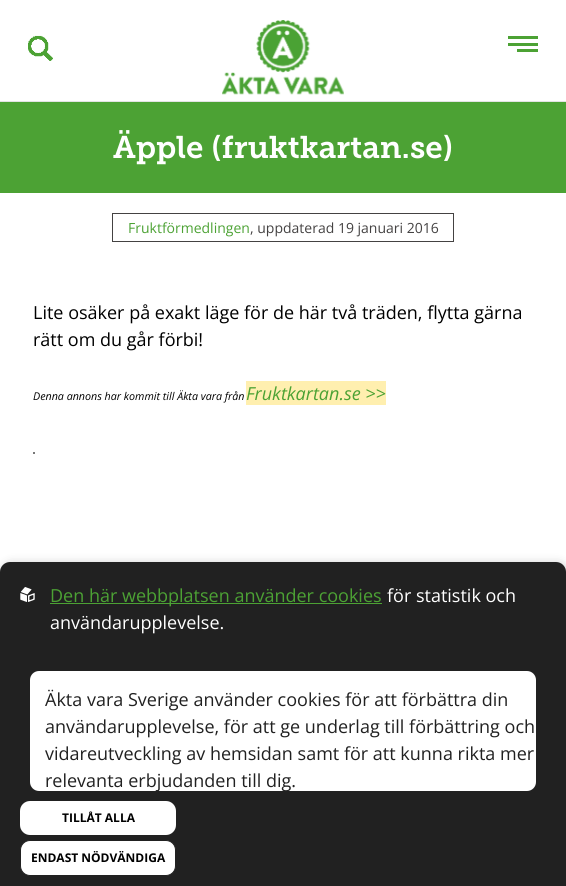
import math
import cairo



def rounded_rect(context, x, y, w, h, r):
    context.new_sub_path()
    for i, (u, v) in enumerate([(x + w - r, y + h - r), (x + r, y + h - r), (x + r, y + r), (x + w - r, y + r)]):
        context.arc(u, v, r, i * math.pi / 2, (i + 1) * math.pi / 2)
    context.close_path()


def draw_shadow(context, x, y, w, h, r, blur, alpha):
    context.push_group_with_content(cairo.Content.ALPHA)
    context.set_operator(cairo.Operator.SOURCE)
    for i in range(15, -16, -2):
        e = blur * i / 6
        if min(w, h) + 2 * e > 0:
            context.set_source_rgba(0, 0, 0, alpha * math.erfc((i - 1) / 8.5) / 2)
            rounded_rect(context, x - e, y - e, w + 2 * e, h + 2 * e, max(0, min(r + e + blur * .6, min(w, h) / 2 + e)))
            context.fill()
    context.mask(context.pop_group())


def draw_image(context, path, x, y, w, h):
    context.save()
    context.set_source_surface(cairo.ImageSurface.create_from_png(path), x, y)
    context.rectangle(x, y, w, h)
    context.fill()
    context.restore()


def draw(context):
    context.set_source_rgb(1, 1, 1)
    context.paint()
    context.set_source_rgb(227 / 255, 227 / 255, 227 / 255)
    context.rectangle(0, 101, 566, 1)
    context.fill()
    draw_image(context, "images/1.png", 28, 35, 25, 26)
    draw_image(context, "images/2.png", 222, 20, 122, 75)
    context.set_source_rgb(76 / 255, 162 / 255, 52 / 255)
    context.rectangle(508, 36, 30, 3)
    context.fill()
    context.rectangle(508, 43, 30, 3)
    context.fill()
    context.rectangle(517, 49, 21, 3)
    context.fill()
    context.rectangle(0, 102, 566, 91)
    context.fill()
    context.rectangle(112.5, 213.5, 341, 28)
    context.set_source_rgb(68 / 255, 66 / 255, 66 / 255)
    context.set_line_width(1)
    context.stroke()
    context.set_source_rgb(1, 239 / 255, 175 / 255)
    context.rectangle(246, 381, 140, 24)
    context.fill()
    context.set_source_rgb(120 / 255, 120 / 255, 120 / 255)
    context.rectangle(33, 452, 2, 2)
    context.fill()
    context.set_source_rgb(0, 0, 0)
    draw_shadow(context, 2, 564, 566, 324, 10, 5, 0.25)
    context.set_source_rgb(33 / 255, 33 / 255, 33 / 255)
    context.new_path()
    context.move_to(10, 562)
    context.line_to(556, 562)
    context.curve_to(561.5, 562, 566, 566.5, 566, 572)
    context.line_to(566, 886)
    context.line_to(0, 886)
    context.line_to(0, 572)
    context.curve_to(0, 566.5, 4.5, 562, 10, 562)
    context.close_path()
    context.fill()
    draw_image(context, "images/3.png", 20, 587, 15, 15)
    context.set_source_rgb(76 / 255, 162 / 255, 52 / 255)
    context.rectangle(50, 603, 332, 1)
    context.fill()
    context.set_source_rgb(1, 1, 1)
    rounded_rect(context, 30, 671, 506, 120, 9)
    context.fill()
    rounded_rect(context, 20, 801, 156, 34, 10)
    context.fill()
    rounded_rect(context, 20.5, 840.5, 155, 35, 9.5)
    context.fill_preserve()
    context.set_source_rgb(33 / 255, 33 / 255, 33 / 255)
    context.stroke()
    context.select_font_face("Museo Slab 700 SemiBold")
    context.set_font_size(31.25)
    context.set_source_rgb(1, 1, 1)
    context.move_to(113, 158)
    context.show_text("Äpple (fruktkartan.se)")
    context.select_font_face("Open Sans")
    context.set_font_size(14)
    context.set_source_rgb(76 / 255, 162 / 255, 52 / 255)
    context.move_to(128, 233)
    context.show_text("Fruktförmedlingen")
    context.set_source_rgb(68 / 255, 66 / 255, 66 / 255)
    context.move_to(250, 233)
    context.show_text(", uppdaterad 19 januari 2016")
    context.set_font_size(18)
    context.set_source_rgb(0, 0, 0)
    context.move_to(33, 319)
    context.show_text("Lite osäker på exakt läge för de här två träden, flytta gärna")
    context.move_to(33, 346)
    context.show_text("rätt om du går förbi!")
    context.select_font_face("Open Sans", cairo.FontSlant.ITALIC)
    context.set_font_size(10.7)
    context.move_to(33, 400)
    context.show_text("Denna annons har kommit till Äkta vara från")
    context.set_font_size(18)
    context.set_source_rgb(76 / 255, 162 / 255, 52 / 255)
    context.move_to(246, 400)
    context.show_text("Fruktkartan.se >>")
    context.select_font_face("Open Sans")
    context.move_to(50, 602)
    context.show_text("Den här webbplatsen använder cookies")
    context.set_source_rgb(1, 1, 1)
    context.move_to(387, 602)
    context.show_text("för statistik och")
    context.move_to(50, 629)
    context.show_text("användarupplevelse.")
    context.set_source_rgb(33 / 255, 33 / 255, 33 / 255)
    context.move_to(45, 706)
    context.show_text("Äkta vara Sverige använder cookies för att förbättra din")
    context.move_to(45, 733)
    context.show_text("användarupplevelse, för att ge underlag till förbättring och")
    context.move_to(45, 760)
    context.show_text("vidareutveckling av hemsidan samt för att kunna rikta mer")
    context.save()
    rounded_rect(context, 30, 671, 506, 120, 9)
    context.clip()
    context.move_to(45, 787)
    context.show_text("relevanta erbjudanden till dig.")
    context.restore()
    context.select_font_face("Open Sans", cairo.FontSlant.NORMAL, cairo.FontWeight.BOLD)
    context.set_font_size(12)
    context.set_source_rgb(0, 0, 0)
    context.move_to(62, 822)
    context.show_text("TILLÅT ALLA")
    context.move_to(31, 862)
    context.show_text("ENDAST NÖDVÄNDIGA")


surface = cairo.ImageSurface(cairo.Format.RGB24, 566, 886)
context = cairo.Context(surface)
options = cairo.FontOptions()
options.set_hint_metrics(cairo.HintMetrics.OFF)
options.set_hint_style(cairo.HintStyle.NONE)
context.set_font_options(options)
context.set_miter_limit(4)
draw(context)
surface.write_to_png("out.png")
